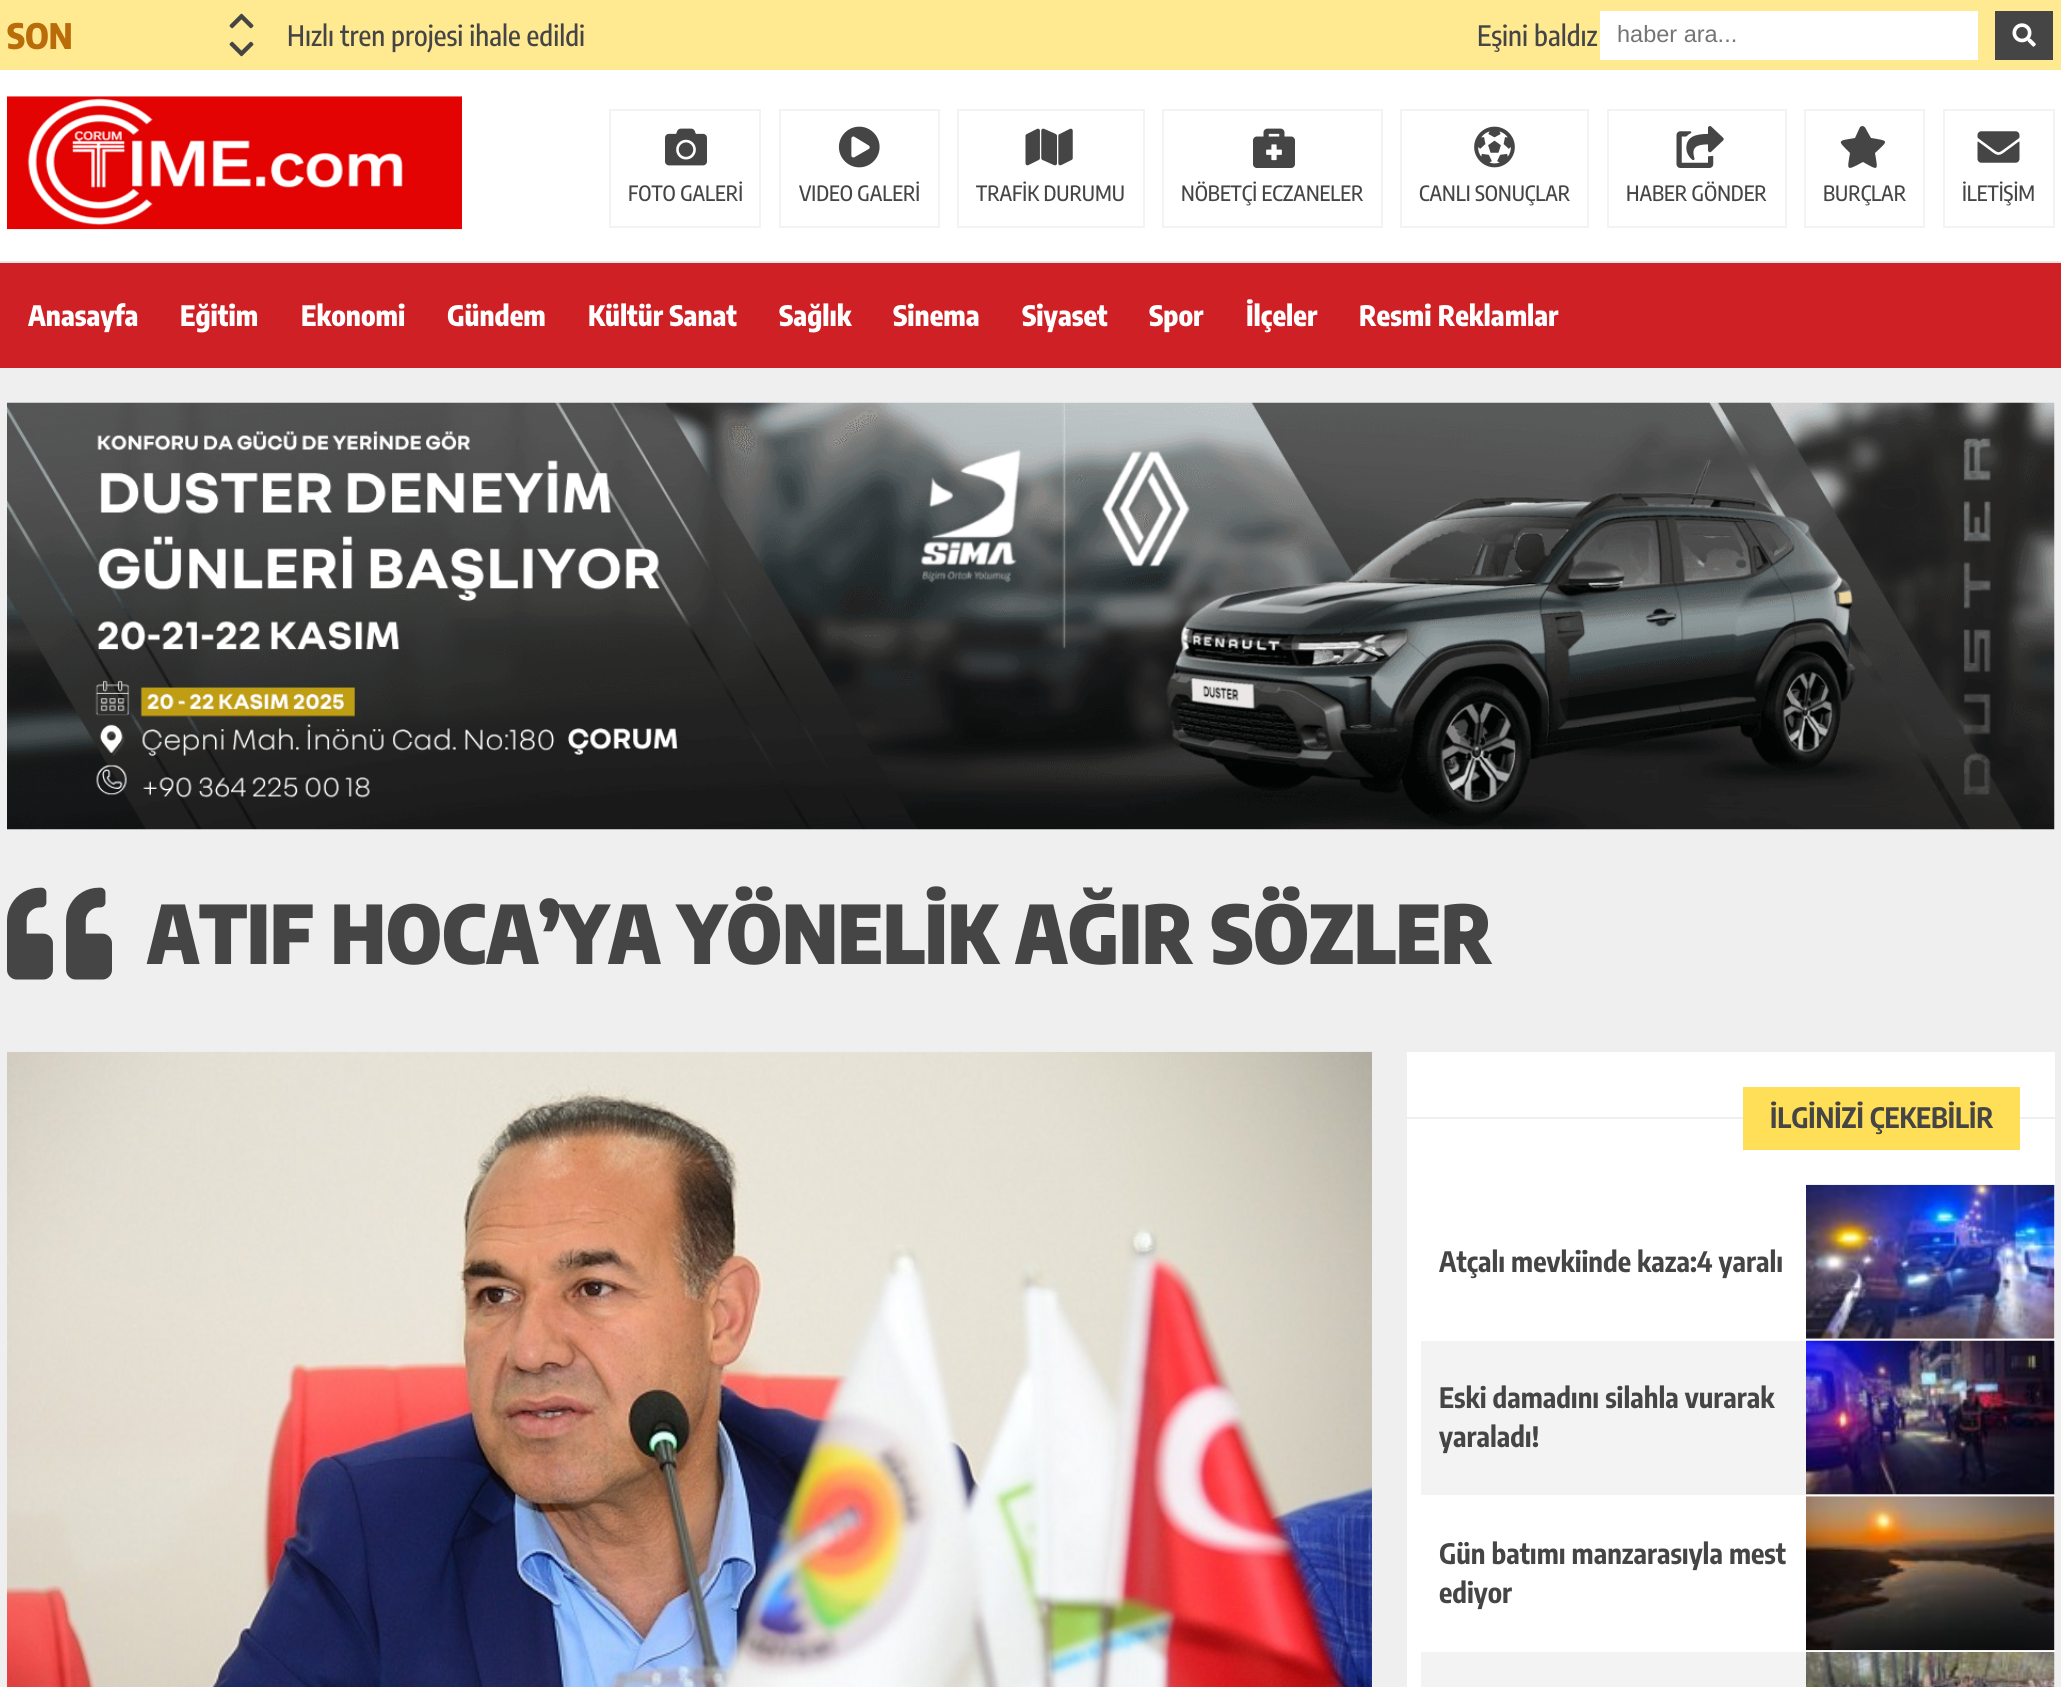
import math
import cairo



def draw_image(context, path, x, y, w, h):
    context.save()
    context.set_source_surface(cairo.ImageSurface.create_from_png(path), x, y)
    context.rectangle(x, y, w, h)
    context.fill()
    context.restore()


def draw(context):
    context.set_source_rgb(239 / 255, 239 / 255, 239 / 255)
    context.paint()
    context.set_source_rgb(1, 233 / 255, 145 / 255)
    context.rectangle(0, 0, 2061, 70)
    context.fill()
    draw_image(context, "images/1.png", 229, 13, 25, 16)
    draw_image(context, "images/2.png", 229, 41, 25, 16)
    context.set_source_rgb(1, 1, 1)
    context.rectangle(1600, 11, 378, 49)
    context.fill()
    context.set_source_rgb(69 / 255, 69 / 255, 69 / 255)
    context.rectangle(1995, 11, 58, 49)
    context.fill()
    draw_image(context, "images/3.png", 2012, 23, 24, 24)
    context.set_source_rgb(1, 1, 1)
    context.rectangle(0, 70, 2061, 191)
    context.fill()
    context.set_source_rgb(230 / 255, 230 / 255, 230 / 255)
    context.rectangle(0, 261, 2061, 2)
    context.fill()
    draw_image(context, "images/4.png", 7, 96, 455, 134)
    draw_image(context, "images/5.png", 665, 128, 42, 38)
    context.rectangle(610, 110, 150, 117)
    context.set_source_rgb(243 / 255, 243 / 255, 243 / 255)
    context.stroke()
    draw_image(context, "images/6.png", 838, 126, 42, 42)
    context.rectangle(780, 110, 159, 117)
    context.stroke()
    draw_image(context, "images/7.png", 1025, 128, 48, 38)
    context.rectangle(958, 110, 186, 117)
    context.stroke()
    draw_image(context, "images/8.png", 1253, 128, 42, 40)
    context.rectangle(1163, 110, 219, 117)
    context.stroke()
    draw_image(context, "images/9.png", 1474, 126, 41, 42)
    context.rectangle(1401, 110, 187, 117)
    context.stroke()
    draw_image(context, "images/10.png", 1676, 126, 48, 42)
    context.rectangle(1608, 110, 178, 117)
    context.stroke()
    context.set_source_rgb(69 / 255, 69 / 255, 69 / 255)
    context.new_path()
    context.move_to(1860, 127)
    context.line_to(1855, 138)
    context.curve_to(1837, 141, 1837, 140, 1850, 153)
    context.curve_to(1847, 171, 1846, 171, 1863, 162)
    context.curve_to(1879, 171, 1878, 171, 1875, 153)
    context.curve_to(1889, 140, 1889, 141, 1871, 138)
    context.line_to(1867, 131)
    context.curve_to(1866, 129, 1865, 126, 1862, 126)
    context.close_path()
    context.fill()
    context.rectangle(1805, 110, 119, 117)
    context.set_source_rgb(243 / 255, 243 / 255, 243 / 255)
    context.stroke()
    draw_image(context, "images/11.png", 1977, 131, 43, 32)
    context.rectangle(1944, 110, 110, 117)
    context.stroke()
    context.set_source_rgb(206 / 255, 32 / 255, 37 / 255)
    context.rectangle(0, 263, 2061, 105)
    context.fill()
    draw_image(context, "images/12.png", 7, 402, 2048, 428)
    draw_image(context, "images/13.png", 7, 887, 105, 93)
    draw_image(context, "images/14.png", 7, 1051, 1365, 636)
    context.set_source_rgb(1, 1, 1)
    context.rectangle(1407, 1052, 648, 600)
    context.fill()
    context.set_source_rgb(239 / 255, 239 / 255, 239 / 255)
    context.rectangle(1407, 1117, 648, 2)
    context.fill()
    context.set_source_rgb(1, 222 / 255, 88 / 255)
    context.rectangle(1743, 1087, 277, 63)
    context.fill()
    draw_image(context, "images/15.png", 1806, 1184, 249, 155)
    context.set_source_rgb(243 / 255, 243 / 255, 243 / 255)
    context.rectangle(1421, 1341, 634, 154)
    context.fill()
    draw_image(context, "images/16.png", 1806, 1340, 249, 155)
    draw_image(context, "images/17.png", 1806, 1496, 249, 155)
    context.rectangle(1421, 1652, 634, 35)
    context.fill()
    context.set_source_rgb(1, 1, 1)
    context.rectangle(1407, 1652, 14, 35)
    context.fill()
    draw_image(context, "images/18.png", 1806, 1652, 249, 35)
    context.select_font_face("Encode Sans Condensed ExtraBold")
    context.set_font_size(35)
    context.set_source_rgb(185 / 255, 108 / 255, 9 / 255)
    context.move_to(7, 49)
    context.show_text("SON")
    context.select_font_face("Encode Sans Condensed Medium")
    context.set_font_size(28)
    context.set_source_rgb(69 / 255, 69 / 255, 69 / 255)
    context.move_to(287, 46)
    context.show_text("Hızlı tren projesi ihale edildi")
    context.move_to(1477, 46)
    context.show_text("Eşini baldız")
    context.select_font_face("Liberation Sans")
    context.set_font_size(23.5)
    context.set_source_rgb(117 / 255, 117 / 255, 117 / 255)
    context.move_to(1617, 42)
    context.show_text("haber ara...")
    context.select_font_face("Encode Sans Condensed Medium")
    context.set_font_size(21)
    context.set_source_rgb(69 / 255, 69 / 255, 69 / 255)
    context.move_to(628, 201)
    context.show_text("FOTO GALERİ")
    context.move_to(799, 201)
    context.show_text("VIDEO GALERİ")
    context.move_to(976, 201)
    context.show_text("TRAFİK DURUMU")
    context.move_to(1181, 201)
    context.show_text("NÖBETÇİ ECZANELER")
    context.move_to(1419, 201)
    context.show_text("CANLI SONUÇLAR")
    context.move_to(1626, 201)
    context.show_text("HABER GÖNDER")
    context.move_to(1823, 201)
    context.show_text("BURÇLAR")
    context.move_to(1962, 201)
    context.show_text("İLETİŞİM")
    context.select_font_face("Encode Sans Condensed ExtraBold")
    context.set_font_size(28)
    context.set_source_rgb(1, 1, 1)
    context.move_to(28, 326)
    context.show_text("Anasayfa")
    context.move_to(180, 326)
    context.show_text("Eğitim")
    context.move_to(301, 326)
    context.show_text("Ekonomi")
    context.move_to(447, 326)
    context.show_text("Gündem")
    context.move_to(588, 326)
    context.show_text("Kültür Sanat")
    context.move_to(779, 326)
    context.show_text("Sağlık")
    context.move_to(893, 326)
    context.show_text("Sinema")
    context.move_to(1022, 326)
    context.show_text("Siyaset")
    context.move_to(1149, 326)
    context.show_text("Spor")
    context.move_to(1246, 326)
    context.show_text("İlçeler")
    context.move_to(1359, 326)
    context.show_text("Resmi Reklamlar")
    context.select_font_face("Encode Sans Condensed Black")
    context.set_font_size(80.5)
    context.set_source_rgb(69 / 255, 69 / 255, 69 / 255)
    context.move_to(147, 964)
    context.show_text("ATIF HOCA’YA YÖNELİK AĞIR SÖZLER")
    context.select_font_face("Encode Sans Condensed", cairo.FontSlant.NORMAL, cairo.FontWeight.BOLD)
    context.set_font_size(28)
    context.move_to(1770, 1128)
    context.show_text("İLGİNİZİ ÇEKEBİLİR")
    context.move_to(1439, 1272)
    context.show_text("Atçalı mevkiinde kaza:4 yaralı")
    context.move_to(1439, 1408)
    context.show_text("Eski damadını silahla vurarak")
    context.move_to(1439, 1447)
    context.show_text("yaraladı!")
    context.move_to(1439, 1564)
    context.show_text("Gün batımı manzarasıyla mest")
    context.move_to(1439, 1603)
    context.show_text("ediyor")


surface = cairo.ImageSurface(cairo.Format.RGB24, 2061, 1687)
context = cairo.Context(surface)
options = cairo.FontOptions()
options.set_hint_metrics(cairo.HintMetrics.OFF)
options.set_hint_style(cairo.HintStyle.NONE)
context.set_font_options(options)
context.set_miter_limit(4)
draw(context)
surface.write_to_png("out.png")
